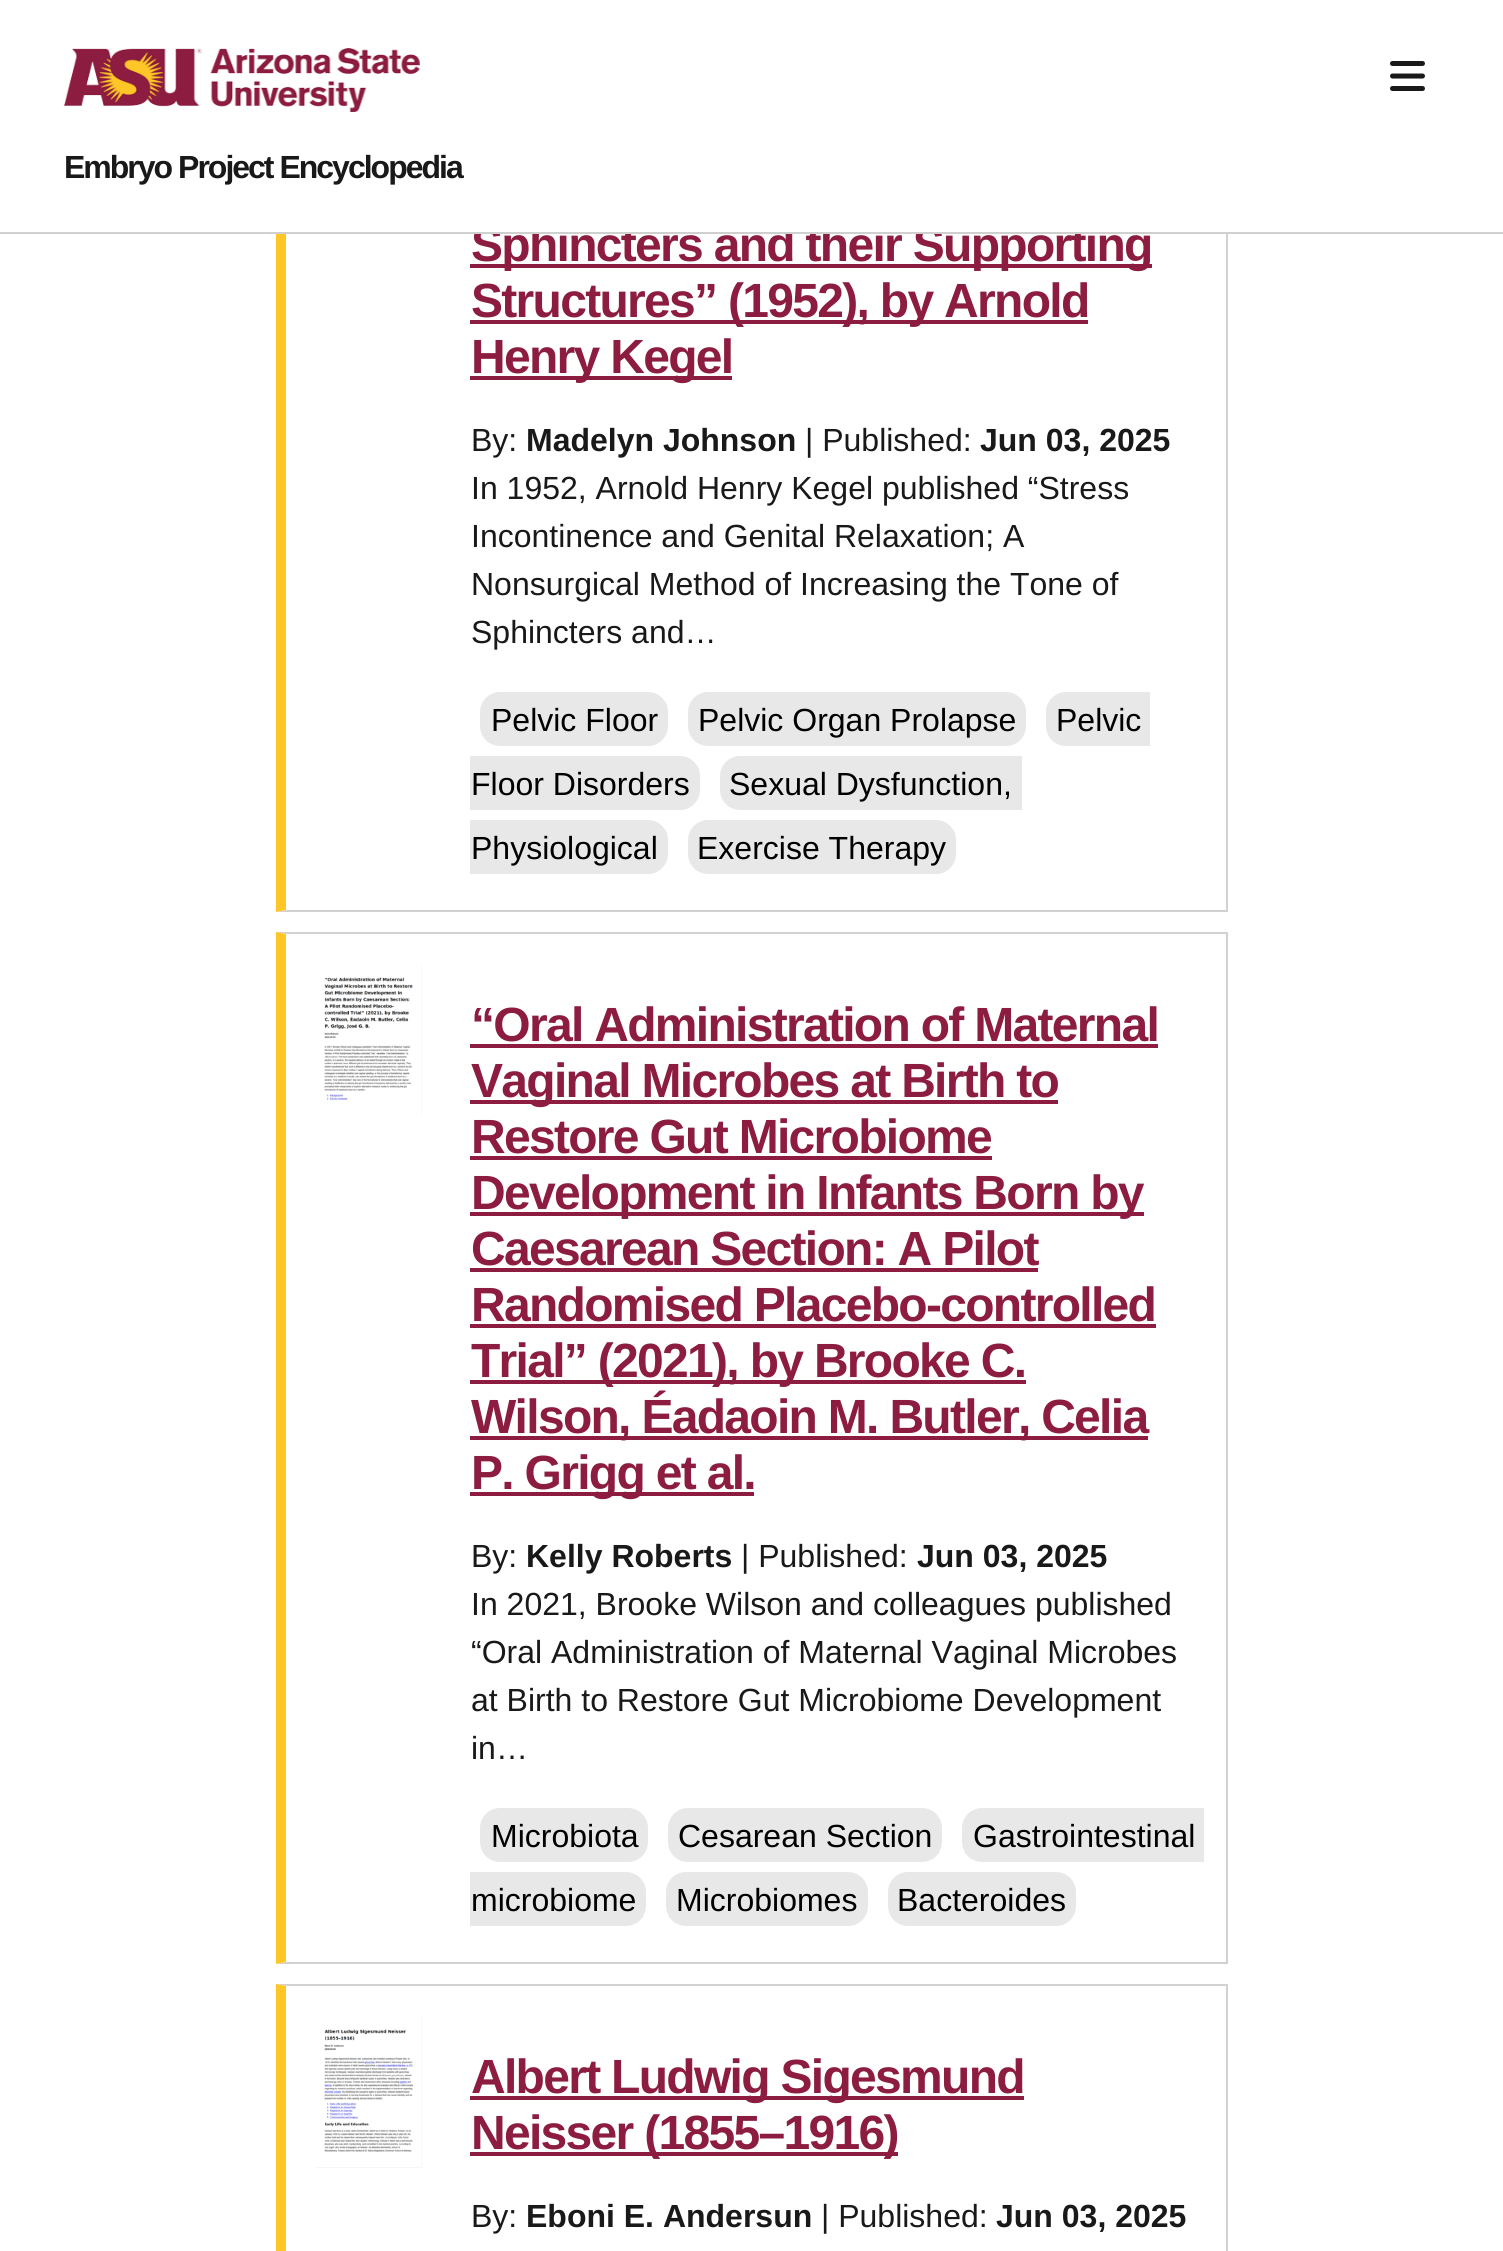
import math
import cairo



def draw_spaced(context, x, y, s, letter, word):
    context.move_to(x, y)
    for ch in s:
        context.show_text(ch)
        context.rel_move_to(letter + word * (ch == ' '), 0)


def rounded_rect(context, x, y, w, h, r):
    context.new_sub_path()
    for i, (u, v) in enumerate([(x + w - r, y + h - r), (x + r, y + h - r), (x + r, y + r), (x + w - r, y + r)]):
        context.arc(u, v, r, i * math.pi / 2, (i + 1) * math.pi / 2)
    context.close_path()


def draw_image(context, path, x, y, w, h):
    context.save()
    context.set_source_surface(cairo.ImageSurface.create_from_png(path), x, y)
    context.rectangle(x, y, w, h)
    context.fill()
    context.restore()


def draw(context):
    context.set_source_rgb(1, 1, 1)
    context.paint()
    draw_image(context, "images/2.png", 1390, 61, 35, 30)
    context.set_source_rgb(210 / 255, 210 / 255, 210 / 255)
    context.new_path()
    context.move_to(1228, -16)
    context.line_to(1228, 912)
    context.line_to(1226, 910)
    context.line_to(1226, -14)
    context.close_path()
    context.fill()
    context.set_source_rgba(0, 0, 0, 0.18)
    context.new_path()
    context.move_to(1228, 912)
    context.line_to(276, 912)
    context.line_to(286, 910)
    context.line_to(1226, 910)
    context.close_path()
    context.fill()
    context.set_source_rgb(1, 198 / 255, 39 / 255)
    context.new_path()
    context.move_to(276, 912)
    context.line_to(276, -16)
    context.line_to(286, -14)
    context.line_to(286, 910)
    context.close_path()
    context.fill()
    context.set_source_rgb(140 / 255, 29 / 255, 64 / 255)
    context.rectangle(470, 264, 682, 4)
    context.fill()
    context.rectangle(470, 320, 618, 4)
    context.fill()
    context.rectangle(470, 376, 262, 4)
    context.fill()
    context.set_source_rgb(232 / 255, 232 / 255, 232 / 255)
    rounded_rect(context, 480, 692, 188, 54, 20)
    context.fill()
    rounded_rect(context, 688, 692, 338, 54, 20)
    context.fill()
    context.new_path()
    context.move_to(1066, 692)
    context.line_to(1142, 692)
    context.line_to(1142, 746)
    context.line_to(1066, 746)
    context.curve_to(1055, 746, 1046, 737, 1046, 726)
    context.line_to(1046, 712)
    context.curve_to(1046, 701, 1055, 692, 1066, 692)
    context.close_path()
    context.fill()
    context.rectangle(1142, 692, 8, 54)
    context.fill()
    context.new_path()
    context.move_to(470, 756)
    context.line_to(680, 756)
    context.curve_to(691, 756, 700, 765, 700, 776)
    context.line_to(700, 790)
    context.curve_to(700, 801, 691, 810, 680, 810)
    context.line_to(470, 810)
    context.close_path()
    context.fill()
    context.new_path()
    context.move_to(740, 756)
    context.line_to(1012, 756)
    context.line_to(1012, 810)
    context.line_to(740, 810)
    context.curve_to(729, 810, 720, 801, 720, 790)
    context.line_to(720, 776)
    context.curve_to(720, 765, 729, 756, 740, 756)
    context.close_path()
    context.fill()
    context.rectangle(1012, 756, 10, 54)
    context.fill()
    context.new_path()
    context.move_to(470, 820)
    context.line_to(648, 820)
    context.curve_to(659, 820, 668, 829, 668, 840)
    context.line_to(668, 854)
    context.curve_to(668, 865, 659, 874, 648, 874)
    context.line_to(470, 874)
    context.close_path()
    context.fill()
    rounded_rect(context, 688, 820, 268, 54, 20)
    context.fill()
    context.set_source_rgb(210 / 255, 210 / 255, 210 / 255)
    context.new_path()
    context.move_to(276, 932)
    context.line_to(1228, 932)
    context.line_to(1226, 934)
    context.line_to(286, 934)
    context.close_path()
    context.fill()
    context.set_source_rgba(0, 0, 0, 0.18)
    context.new_path()
    context.move_to(1228, 932)
    context.line_to(1228, 1964)
    context.line_to(1226, 1962)
    context.line_to(1226, 934)
    context.close_path()
    context.fill()
    context.new_path()
    context.move_to(1228, 1964)
    context.line_to(276, 1964)
    context.line_to(286, 1962)
    context.line_to(1226, 1962)
    context.close_path()
    context.fill()
    context.set_source_rgb(1, 198 / 255, 39 / 255)
    context.new_path()
    context.move_to(276, 1964)
    context.line_to(276, 932)
    context.line_to(286, 934)
    context.line_to(286, 1962)
    context.close_path()
    context.fill()
    draw_image(context, "images/3.png", 324, 964, 98, 152)
    context.set_source_rgb(140 / 255, 29 / 255, 64 / 255)
    context.rectangle(470, 1044, 688, 4)
    context.fill()
    context.rectangle(470, 1100, 588, 4)
    context.fill()
    context.rectangle(470, 1156, 522, 4)
    context.fill()
    context.rectangle(470, 1212, 674, 4)
    context.fill()
    context.rectangle(470, 1268, 568, 4)
    context.fill()
    context.rectangle(470, 1324, 686, 4)
    context.fill()
    context.rectangle(470, 1380, 556, 4)
    context.fill()
    context.rectangle(470, 1436, 678, 4)
    context.fill()
    context.rectangle(470, 1492, 284, 4)
    context.fill()
    context.set_source_rgb(232 / 255, 232 / 255, 232 / 255)
    rounded_rect(context, 480, 1808, 168, 54, 20)
    context.fill()
    rounded_rect(context, 668, 1808, 274, 54, 20)
    context.fill()
    context.new_path()
    context.move_to(982, 1808)
    context.line_to(1196, 1808)
    context.line_to(1196, 1862)
    context.line_to(982, 1862)
    context.curve_to(971, 1862, 962, 1853, 962, 1842)
    context.line_to(962, 1828)
    context.curve_to(962, 1817, 971, 1808, 982, 1808)
    context.close_path()
    context.fill()
    context.rectangle(1196, 1808, 8, 54)
    context.fill()
    context.new_path()
    context.move_to(470, 1872)
    context.line_to(626, 1872)
    context.curve_to(637, 1872, 646, 1881, 646, 1892)
    context.line_to(646, 1906)
    context.curve_to(646, 1917, 637, 1926, 626, 1926)
    context.line_to(470, 1926)
    context.close_path()
    context.fill()
    rounded_rect(context, 666, 1872, 202, 54, 20)
    context.fill()
    rounded_rect(context, 888, 1872, 188, 54, 20)
    context.fill()
    context.set_source_rgb(210 / 255, 210 / 255, 210 / 255)
    context.new_path()
    context.move_to(276, 1984)
    context.line_to(1228, 1984)
    context.line_to(1226, 1986)
    context.line_to(286, 1986)
    context.close_path()
    context.fill()
    context.set_source_rgba(0, 0, 0, 0.18)
    context.new_path()
    context.move_to(1228, 1984)
    context.line_to(1228, 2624)
    context.line_to(1226, 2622)
    context.line_to(1226, 1986)
    context.close_path()
    context.fill()
    context.set_source_rgb(1, 198 / 255, 39 / 255)
    context.new_path()
    context.move_to(276, 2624)
    context.line_to(276, 1984)
    context.line_to(286, 1986)
    context.line_to(286, 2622)
    context.close_path()
    context.fill()
    draw_image(context, "images/4.png", 316, 2016, 106, 152)
    context.set_source_rgb(140 / 255, 29 / 255, 64 / 255)
    context.rectangle(470, 2096, 554, 4)
    context.fill()
    context.rectangle(470, 2152, 428, 4)
    context.fill()
    context.select_font_face("Liberation Sans", cairo.FontSlant.NORMAL, cairo.FontWeight.BOLD)
    context.set_font_size(48)
    draw_spaced(context, 471, 261, "Sphincters and their Supporting", -1.7, 0)
    context.set_source_rgb(1, 1, 1)
    context.rectangle(276, 0, 952, 232)
    context.fill()
    context.set_font_size(32)
    context.set_source_rgb(25 / 255, 25 / 255, 25 / 255)
    draw_spaced(context, 64, 178, "Embryo Project Encyclopedia", -2, 0)
    draw_image(context, "images/1.png", 64, 48, 356, 64)
    context.set_source_rgb(208 / 255, 208 / 255, 208 / 255)
    context.rectangle(0, 232, 1503, 2)
    context.fill()
    context.set_font_size(48)
    context.set_source_rgb(140 / 255, 29 / 255, 64 / 255)
    draw_spaced(context, 471, 317, "Structures” (1952), by Arnold", -1.7, 0)
    draw_spaced(context, 471, 373, "Henry Kegel", -1.7, 0)
    context.select_font_face("Liberation Sans")
    context.set_font_size(32)
    context.set_source_rgb(25 / 255, 25 / 255, 25 / 255)
    context.move_to(471, 451)
    context.show_text("By:")
    context.select_font_face("Liberation Sans", cairo.FontSlant.NORMAL, cairo.FontWeight.BOLD)
    context.move_to(526, 451)
    context.show_text("Madelyn Johnson")
    context.select_font_face("Liberation Sans")
    context.move_to(805, 451)
    context.show_text("| Published:")
    context.select_font_face("Liberation Sans", cairo.FontSlant.NORMAL, cairo.FontWeight.BOLD)
    context.move_to(980, 451)
    context.show_text("Jun 03, 2025")
    context.select_font_face("Liberation Sans")
    context.move_to(471, 499)
    context.show_text("In 1952, Arnold Henry Kegel published “Stress")
    context.move_to(471, 547)
    context.show_text("Incontinence and Genital Relaxation; A")
    context.move_to(471, 595)
    context.show_text("Nonsurgical Method of Increasing the Tone of")
    context.move_to(471, 643)
    context.show_text("Sphincters and…")
    context.set_source_rgb(0, 0, 0)
    context.move_to(491, 731)
    context.show_text("Pelvic Floor")
    context.move_to(698, 731)
    context.show_text("Pelvic Organ Prolapse")
    context.move_to(1056, 731)
    context.show_text("Pelvic")
    context.move_to(471, 795)
    context.show_text("Floor Disorders")
    context.move_to(729, 795)
    context.show_text("Sexual Dysfunction,")
    context.move_to(471, 859)
    context.show_text("Physiological")
    context.move_to(697, 859)
    context.show_text("Exercise Therapy")
    context.select_font_face("Liberation Sans", cairo.FontSlant.NORMAL, cairo.FontWeight.BOLD)
    context.set_font_size(48)
    context.set_source_rgb(140 / 255, 29 / 255, 64 / 255)
    draw_spaced(context, 471, 1041, "“Oral Administration of Maternal", -1.7, 0)
    draw_spaced(context, 471, 1097, "Vaginal Microbes at Birth to", -1.7, 0)
    draw_spaced(context, 471, 1153, "Restore Gut Microbiome", -1.7, 0)
    draw_spaced(context, 471, 1209, "Development in Infants Born by", -1.7, 0)
    draw_spaced(context, 471, 1265, "Caesarean Section: A Pilot", -1.7, 0)
    draw_spaced(context, 471, 1321, "Randomised Placebo-controlled", -1.7, 0)
    draw_spaced(context, 471, 1377, "Trial” (2021), by Brooke C.", -1.7, 0)
    draw_spaced(context, 471, 1433, "Wilson, Éadaoin M. Butler, Celia", -1.7, 0)
    draw_spaced(context, 471, 1489, "P. Grigg et al.", -1.7, 0)
    context.select_font_face("Liberation Sans")
    context.set_font_size(32)
    context.set_source_rgb(25 / 255, 25 / 255, 25 / 255)
    context.move_to(471, 1567)
    context.show_text("By:")
    context.select_font_face("Liberation Sans", cairo.FontSlant.NORMAL, cairo.FontWeight.BOLD)
    context.move_to(526, 1567)
    context.show_text("Kelly Roberts")
    context.select_font_face("Liberation Sans")
    context.move_to(741, 1567)
    context.show_text("| Published:")
    context.select_font_face("Liberation Sans", cairo.FontSlant.NORMAL, cairo.FontWeight.BOLD)
    context.move_to(917, 1567)
    context.show_text("Jun 03, 2025")
    context.select_font_face("Liberation Sans")
    context.move_to(471, 1615)
    context.show_text("In 2021, Brooke Wilson and colleagues published")
    context.move_to(471, 1663)
    context.show_text("“Oral Administration of Maternal Vaginal Microbes")
    context.move_to(471, 1711)
    context.show_text("at Birth to Restore Gut Microbiome Development")
    context.move_to(471, 1759)
    context.show_text("in…")
    context.set_source_rgb(0, 0, 0)
    context.move_to(491, 1847)
    context.show_text("Microbiota")
    context.move_to(678, 1847)
    context.show_text("Cesarean Section")
    context.move_to(973, 1847)
    context.show_text("Gastrointestinal")
    context.move_to(471, 1911)
    context.show_text("microbiome")
    context.move_to(676, 1911)
    context.show_text("Microbiomes")
    context.move_to(897, 1911)
    context.show_text("Bacteroides")
    context.select_font_face("Liberation Sans", cairo.FontSlant.NORMAL, cairo.FontWeight.BOLD)
    context.set_font_size(48)
    context.set_source_rgb(140 / 255, 29 / 255, 64 / 255)
    draw_spaced(context, 471, 2093, "Albert Ludwig Sigesmund", -1.7, 0)
    draw_spaced(context, 471, 2149, "Neisser (1855–1916)", -1.7, 0)
    context.select_font_face("Liberation Sans")
    context.set_font_size(32)
    context.set_source_rgb(25 / 255, 25 / 255, 25 / 255)
    context.move_to(471, 2227)
    context.show_text("By:")
    context.select_font_face("Liberation Sans", cairo.FontSlant.NORMAL, cairo.FontWeight.BOLD)
    context.move_to(526, 2227)
    context.show_text("Eboni E. Andersun")
    context.select_font_face("Liberation Sans")
    context.move_to(821, 2227)
    context.show_text("| Published:")
    context.select_font_face("Liberation Sans", cairo.FontSlant.NORMAL, cairo.FontWeight.BOLD)
    context.move_to(996, 2227)
    context.show_text("Jun 03, 2025")


surface = cairo.ImageSurface(cairo.Format.RGB24, 1503, 2251)
context = cairo.Context(surface)
options = cairo.FontOptions()
options.set_hint_metrics(cairo.HintMetrics.OFF)
options.set_hint_style(cairo.HintStyle.NONE)
context.set_font_options(options)
context.set_miter_limit(4)
draw(context)
surface.write_to_png("out.png")
